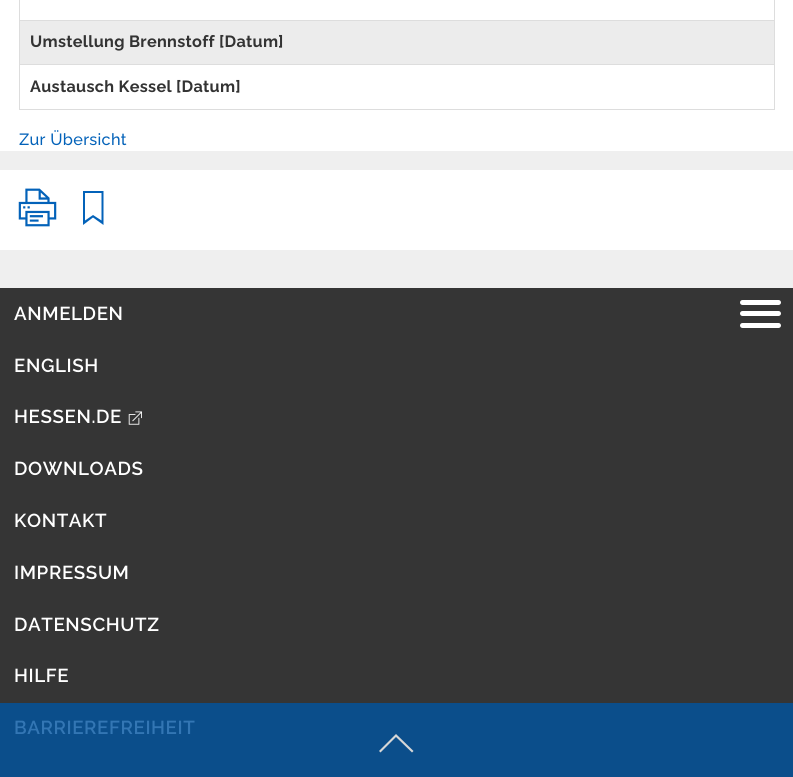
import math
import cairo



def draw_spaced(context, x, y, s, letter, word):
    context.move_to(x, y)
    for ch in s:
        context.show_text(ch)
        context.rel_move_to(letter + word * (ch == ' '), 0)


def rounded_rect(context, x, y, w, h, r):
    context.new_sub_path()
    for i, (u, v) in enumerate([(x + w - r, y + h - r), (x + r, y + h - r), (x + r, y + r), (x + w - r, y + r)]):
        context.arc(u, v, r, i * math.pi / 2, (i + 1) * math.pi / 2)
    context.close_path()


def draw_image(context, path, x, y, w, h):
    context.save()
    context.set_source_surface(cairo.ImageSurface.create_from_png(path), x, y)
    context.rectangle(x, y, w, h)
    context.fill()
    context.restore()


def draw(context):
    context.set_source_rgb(239 / 255, 239 / 255, 239 / 255)
    context.paint()
    context.set_source_rgb(1, 1, 1)
    context.rectangle(0, 0, 793, 151)
    context.fill()
    context.rectangle(19.5, -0.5, 755, 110)
    context.set_source_rgb(221 / 255, 221 / 255, 221 / 255)
    context.set_line_width(1)
    context.stroke()
    context.set_source_rgb(236 / 255, 236 / 255, 236 / 255)
    context.rectangle(20, 21, 754, 43)
    context.fill()
    context.set_source_rgb(221 / 255, 221 / 255, 221 / 255)
    context.rectangle(20, 20, 754, 1)
    context.fill()
    context.rectangle(20, 64, 754, 1)
    context.fill()
    context.set_source_rgb(1, 1, 1)
    context.rectangle(0, 170, 793, 80)
    context.fill()
    draw_image(context, "images/1.png", 18, 188, 39, 39)
    context.set_source_rgb(3 / 255, 98 / 255, 185 / 255)
    context.new_path()
    context.move_to(83, 191)
    context.line_to(83, 225)
    context.line_to(93, 217.5)
    context.line_to(103.5, 225)
    context.line_to(103.5, 191)
    context.close_path()
    context.move_to(101.5, 220.5)
    context.line_to(93, 215)
    context.line_to(85, 220.5)
    context.line_to(85, 193)
    context.line_to(101.5, 193)
    context.close_path()
    context.fill()
    context.set_source_rgb(53 / 255, 53 / 255, 53 / 255)
    context.rectangle(0, 288, 793, 415)
    context.fill()
    context.set_source_rgb(11 / 255, 78 / 255, 139 / 255)
    context.rectangle(0, 703, 793, 74)
    context.fill()
    draw_image(context, "images/2.png", 128, 411, 14, 14)
    context.set_source_rgb(1, 1, 1)
    rounded_rect(context, 740, 300, 41, 5, 2.5)
    context.fill()
    rounded_rect(context, 740, 311, 41, 5, 2.5)
    context.fill()
    rounded_rect(context, 740, 323, 41, 5, 2.5)
    context.fill()
    context.set_source_rgb(215 / 255, 215 / 255, 215 / 255)
    context.new_path()
    context.move_to(413.5, 751)
    context.line_to(412, 752.5)
    context.line_to(396, 737)
    context.line_to(380.5, 752.5)
    context.line_to(379, 751)
    context.line_to(396, 734)
    context.close_path()
    context.fill()
    context.select_font_face("Raleway", cairo.FontSlant.NORMAL, cairo.FontWeight.BOLD)
    context.set_font_size(16.25)
    context.set_source_rgb(51 / 255, 51 / 255, 51 / 255)
    draw_spaced(context, 30, 47, "Umstellung Brennstoff [Datum]", 0.3, 0)
    draw_spaced(context, 30, 92, "Austausch Kessel [Datum]", 0.3, 0)
    context.select_font_face("Raleway Medium")
    context.set_source_rgb(3 / 255, 98 / 255, 185 / 255)
    draw_spaced(context, 19, 145, "Zur Übersicht", 0.3, 0)
    context.select_font_face("Raleway SemiBold")
    context.set_font_size(18.75)
    context.set_source_rgb(1, 1, 1)
    draw_spaced(context, 14, 320, "ANMELDEN", 0.6, 0)
    draw_spaced(context, 14, 372, "ENGLISH", 0.6, 0)
    draw_spaced(context, 14, 423, "HESSEN.DE", 0.6, 0)
    draw_spaced(context, 14, 475, "DOWNLOADS", 0.6, 0)
    draw_spaced(context, 14, 527, "KONTAKT", 0.6, 0)
    draw_spaced(context, 14, 579, "IMPRESSUM", 0.6, 0)
    draw_spaced(context, 14, 631, "DATENSCHUTZ", 0.6, 0)
    draw_spaced(context, 14, 682, "HILFE", 0.6, 0)
    context.set_source_rgb(51 / 255, 118 / 255, 180 / 255)
    draw_spaced(context, 14, 734, "BARRIEREFREIHEIT", 0.6, 0)


surface = cairo.ImageSurface(cairo.Format.RGB24, 793, 777)
context = cairo.Context(surface)
options = cairo.FontOptions()
options.set_hint_metrics(cairo.HintMetrics.OFF)
options.set_hint_style(cairo.HintStyle.NONE)
context.set_font_options(options)
context.set_miter_limit(4)
draw(context)
surface.write_to_png("out.png")
